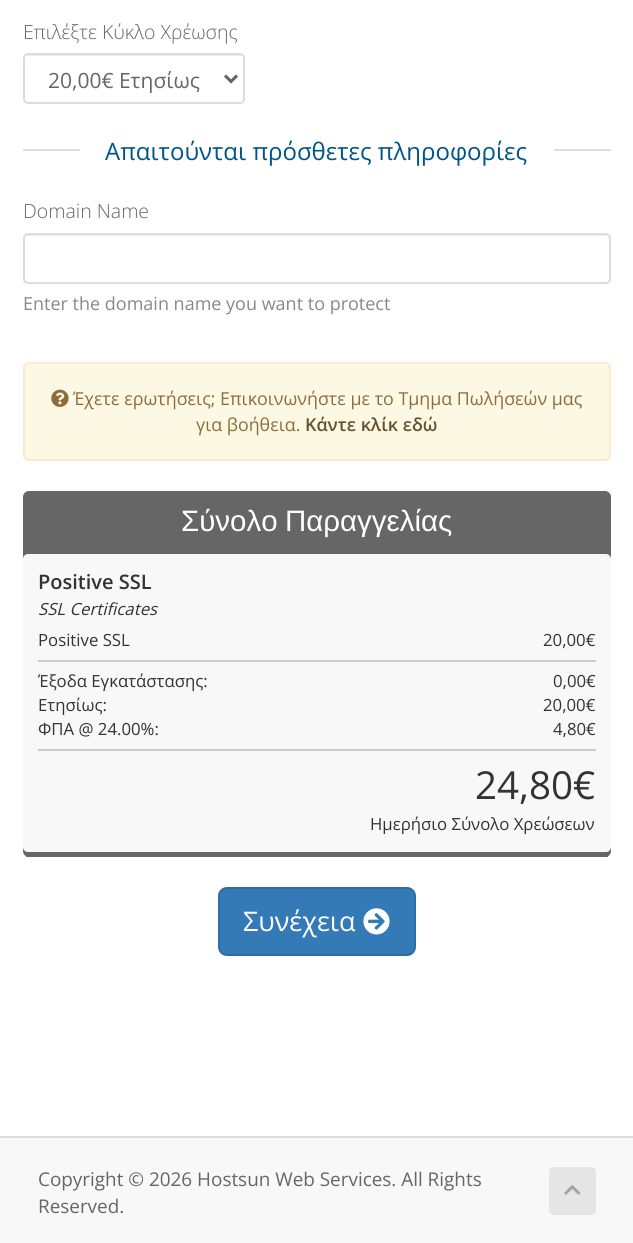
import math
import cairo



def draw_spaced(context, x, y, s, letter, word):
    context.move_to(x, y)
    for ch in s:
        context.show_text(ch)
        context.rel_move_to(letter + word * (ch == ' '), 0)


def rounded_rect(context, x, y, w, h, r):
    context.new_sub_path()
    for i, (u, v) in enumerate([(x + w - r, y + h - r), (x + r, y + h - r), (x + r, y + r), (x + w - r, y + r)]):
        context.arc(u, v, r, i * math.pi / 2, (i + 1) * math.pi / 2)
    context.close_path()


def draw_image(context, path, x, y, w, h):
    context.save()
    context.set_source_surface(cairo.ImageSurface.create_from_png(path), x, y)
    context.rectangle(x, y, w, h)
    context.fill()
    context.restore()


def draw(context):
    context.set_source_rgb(248 / 255, 248 / 255, 248 / 255)
    context.paint()
    context.set_source_rgb(1, 1, 1)
    context.rectangle(0, 0, 633, 1136)
    context.fill()
    context.set_source_rgb(236 / 255, 236 / 255, 236 / 255)
    context.new_path()
    context.move_to(27, 56)
    context.line_to(240, 56)
    context.curve_to(242, 56, 243, 57, 243, 58)
    context.line_to(243, 57)
    context.curve_to(243, 55, 242, 54, 240, 54)
    context.line_to(27, 54)
    context.curve_to(25, 54, 24, 55, 24, 57)
    context.line_to(24, 58)
    context.curve_to(24, 57, 25, 56, 27, 56)
    context.close_path()
    context.fill()
    rounded_rect(context, 24, 54, 220, 49, 4)
    context.set_source_rgb(221 / 255, 221 / 255, 221 / 255)
    context.stroke()
    context.new_path()
    context.move_to(225, 75.5)
    context.line_to(231, 81.5)
    context.line_to(237, 75.5)
    context.set_source_rgb(98 / 255, 98 / 255, 98 / 255)
    context.set_line_width(3)
    context.stroke()
    context.set_source_rgb(221 / 255, 221 / 255, 221 / 255)
    context.rectangle(23, 149, 588, 2)
    context.fill()
    context.set_source_rgb(1, 1, 1)
    context.rectangle(80, 149, 474, 2)
    context.fill()
    context.set_source_rgb(236 / 255, 236 / 255, 236 / 255)
    context.new_path()
    context.move_to(27, 236)
    context.line_to(606, 236)
    context.curve_to(608, 236, 609, 237, 609, 238)
    context.line_to(609, 237)
    context.curve_to(609, 235, 608, 234, 606, 234)
    context.line_to(27, 234)
    context.curve_to(25, 234, 24, 235, 24, 237)
    context.line_to(24, 238)
    context.curve_to(24, 237, 25, 236, 27, 236)
    context.close_path()
    context.fill()
    rounded_rect(context, 24, 234, 586, 49, 4)
    context.set_source_rgb(221 / 255, 221 / 255, 221 / 255)
    context.set_line_width(2)
    context.stroke()
    context.set_source_rgb(252 / 255, 248 / 255, 227 / 255)
    rounded_rect(context, 24, 363, 586, 97, 5)
    context.fill_preserve()
    context.set_source_rgb(250 / 255, 235 / 255, 204 / 255)
    context.stroke()
    draw_image(context, "images/1.png", 51, 389, 18, 18)
    context.set_source_rgb(102 / 255, 102 / 255, 102 / 255)
    rounded_rect(context, 23, 491, 588, 366, 6)
    context.fill()
    context.rectangle(26, 856, 582, 1)
    context.fill()
    context.set_source_rgb(248 / 255, 248 / 255, 248 / 255)
    rounded_rect(context, 23, 554, 588, 298, 5)
    context.fill()
    context.set_source_rgb(204 / 255, 204 / 255, 204 / 255)
    context.rectangle(38, 660, 558, 2)
    context.fill()
    context.rectangle(38, 749, 558, 2)
    context.fill()
    context.set_source_rgb(51 / 255, 122 / 255, 183 / 255)
    rounded_rect(context, 219, 888, 196, 67, 8)
    context.fill_preserve()
    context.set_source_rgb(46 / 255, 109 / 255, 164 / 255)
    context.stroke()
    draw_image(context, "images/2.png", 363, 908, 27, 27)
    context.set_source_rgb(221 / 255, 221 / 255, 221 / 255)
    context.rectangle(0, 1136, 633, 2)
    context.fill()
    context.set_source_rgb(229 / 255, 229 / 255, 229 / 255)
    rounded_rect(context, 549, 1167, 47, 48, 5)
    context.fill()
    draw_image(context, "images/3.png", 564, 1185, 17, 10)
    context.select_font_face("Open Sans Light")
    context.set_font_size(19.5)
    context.set_source_rgb(102 / 255, 102 / 255, 102 / 255)
    context.move_to(23, 39)
    context.show_text("Επιλέξτε Κύκλο Χρέωσης")
    context.select_font_face("Open Sans")
    context.set_font_size(21)
    context.move_to(48, 88)
    context.show_text("20,00€ Ετησίως")
    context.set_font_size(24)
    context.set_source_rgb(0, 85 / 255, 136 / 255)
    context.move_to(105, 160)
    context.show_text("Απαιτούνται πρόσθετες πληροφορίες")
    context.select_font_face("Open Sans Light")
    context.set_font_size(19.5)
    context.set_source_rgb(102 / 255, 102 / 255, 102 / 255)
    context.move_to(23, 218)
    context.show_text("Domain Name")
    context.select_font_face("Open Sans")
    context.set_font_size(18)
    context.set_source_rgb(136 / 255, 136 / 255, 136 / 255)
    context.move_to(23, 310)
    context.show_text("Enter the domain name you want to protect")
    context.set_font_size(17.85)
    context.set_source_rgb(138 / 255, 109 / 255, 59 / 255)
    context.move_to(73, 405)
    context.show_text("Έχετε ερωτήσεις; Επικοινωνήστε με το Τμημα Πωλήσεών μας")
    context.move_to(196, 431)
    context.show_text("για βοήθεια.")
    context.select_font_face("Open Sans SemiBold")
    context.set_source_rgb(102 / 255, 81 / 255, 44 / 255)
    context.move_to(305, 431)
    context.show_text("Κάντε κλίκ εδώ")
    context.select_font_face("Liberation Sans")
    context.set_font_size(29.5)
    context.set_source_rgb(1, 1, 1)
    draw_spaced(context, 181, 531, "Σύνολο Παραγγελίας", 0, -1)
    context.select_font_face("Open Sans SemiBold")
    context.set_font_size(20)
    context.set_source_rgb(51 / 255, 51 / 255, 51 / 255)
    context.move_to(38, 589)
    context.show_text("Positive SSL")
    context.select_font_face("Open Sans", cairo.FontSlant.ITALIC)
    context.set_font_size(16.75)
    context.move_to(38, 615)
    context.show_text("SSL Certificates")
    context.select_font_face("Open Sans")
    context.move_to(38, 646)
    context.show_text("Positive SSL")
    context.move_to(543, 646)
    context.show_text("20,00€")
    context.move_to(38, 687)
    context.show_text("Έξοδα Εγκατάστασης:")
    context.move_to(553, 687)
    context.show_text("0,00€")
    context.move_to(38, 711)
    context.show_text("Ετησίως:")
    context.move_to(543, 711)
    context.show_text("20,00€")
    context.move_to(38, 735)
    context.show_text("ΦΠΑ @ 24.00%:")
    context.move_to(553, 735)
    context.show_text("4,80€")
    context.set_font_size(38.5)
    context.move_to(475, 799)
    context.show_text("24,80€")
    context.set_font_size(16.75)
    context.move_to(370, 830)
    context.show_text("Ημερήσιο Σύνολο Χρεώσεων")
    context.set_font_size(27)
    context.set_source_rgb(1, 1, 1)
    context.move_to(243, 931)
    context.show_text("Συνέχεια")
    context.set_font_size(18.9)
    context.set_source_rgb(102 / 255, 102 / 255, 102 / 255)
    context.move_to(38, 1186)
    context.show_text("Copyright © 2026 Hostsun Web Services. All Rights")
    context.move_to(38, 1213)
    context.show_text("Reserved.")


surface = cairo.ImageSurface(cairo.Format.RGB24, 633, 1243)
context = cairo.Context(surface)
options = cairo.FontOptions()
options.set_hint_metrics(cairo.HintMetrics.OFF)
options.set_hint_style(cairo.HintStyle.NONE)
context.set_font_options(options)
context.set_miter_limit(4)
draw(context)
surface.write_to_png("out.png")
